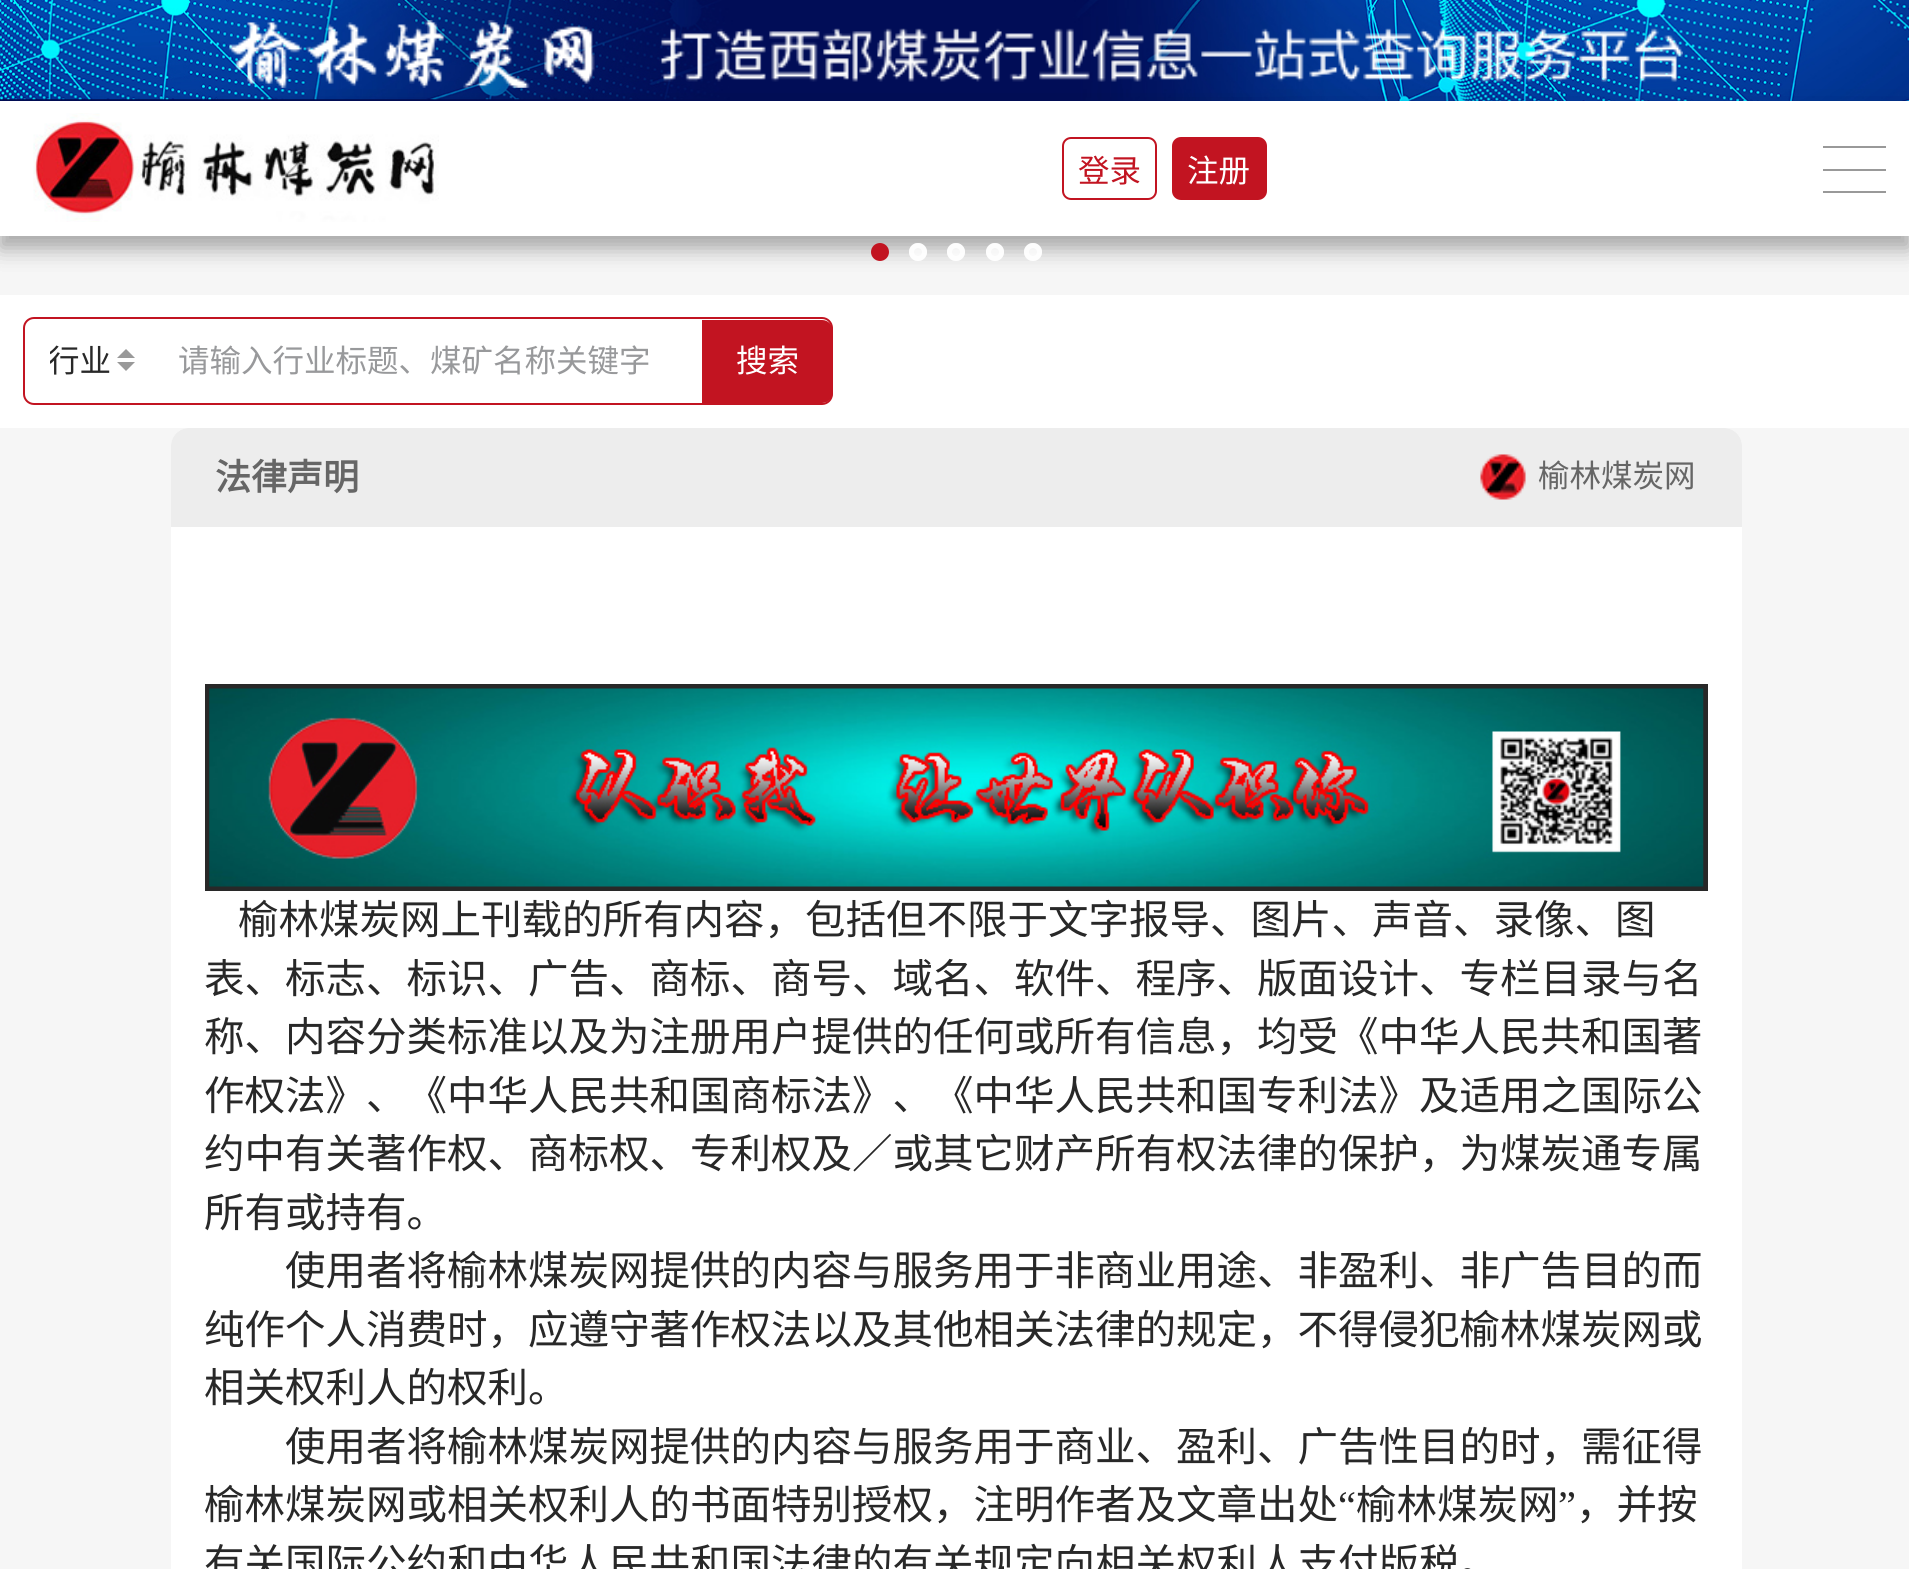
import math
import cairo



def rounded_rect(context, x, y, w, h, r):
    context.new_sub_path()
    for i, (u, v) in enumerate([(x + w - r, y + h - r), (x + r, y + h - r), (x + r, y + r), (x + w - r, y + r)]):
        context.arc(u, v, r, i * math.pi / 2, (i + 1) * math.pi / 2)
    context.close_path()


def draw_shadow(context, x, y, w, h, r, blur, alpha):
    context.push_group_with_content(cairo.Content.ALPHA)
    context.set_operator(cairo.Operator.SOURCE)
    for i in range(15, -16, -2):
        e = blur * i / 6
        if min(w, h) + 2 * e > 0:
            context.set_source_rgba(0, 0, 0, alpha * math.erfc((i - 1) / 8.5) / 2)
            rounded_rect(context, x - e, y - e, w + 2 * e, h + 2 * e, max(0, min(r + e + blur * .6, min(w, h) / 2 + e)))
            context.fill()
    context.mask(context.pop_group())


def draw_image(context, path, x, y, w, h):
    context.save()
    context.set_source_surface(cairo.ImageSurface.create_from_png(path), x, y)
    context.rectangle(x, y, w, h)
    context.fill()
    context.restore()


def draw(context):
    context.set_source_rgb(246 / 255, 246 / 255, 246 / 255)
    context.paint()
    draw_image(context, "images/1.png", 0, 0, 1909, 101)
    context.set_source_rgb(0, 0, 0)
    draw_shadow(context, 0, 113, 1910, 135, 0, 11, 0.18)
    draw_image(context, "images/2.png", 229, 20, 1454, 68)
    context.set_source_rgb(1, 1, 1)
    context.rectangle(0, 101, 1909, 135)
    context.fill()
    context.save()
    context.set_fill_rule(cairo.FillRule.EVEN_ODD)
    context.new_path()
    context.move_to(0, 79)
    context.line_to(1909, 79)
    context.line_to(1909, 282)
    context.line_to(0, 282)
    context.close_path()
    context.move_to(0, 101)
    context.line_to(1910, 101)
    context.line_to(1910, 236)
    context.line_to(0, 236)
    context.close_path()
    context.clip()
    context.set_source_rgb(0, 0, 0)
    draw_shadow(context, 0, 113, 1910, 135, 0, 11, 0.18)
    context.restore()
    draw_image(context, "images/3.png", 33, 113, 406, 109)
    rounded_rect(context, 1063, 138, 93, 61, 8)
    context.set_source_rgb(194 / 255, 20 / 255, 33 / 255)
    context.stroke()
    rounded_rect(context, 1173, 138, 93, 61, 8)
    context.fill_preserve()
    context.stroke()
    context.set_source_rgb(153 / 255, 153 / 255, 153 / 255)
    context.rectangle(1823, 146, 63, 2)
    context.fill()
    context.rectangle(1823, 169, 63, 2)
    context.fill()
    context.rectangle(1823, 191, 63, 2)
    context.fill()
    context.set_source_rgb(194 / 255, 20 / 255, 33 / 255)
    context.arc(880, 252, 6.5, 0, 2 * math.pi)
    context.fill_preserve()
    context.set_line_width(5)
    context.stroke()
    context.set_source_rgba(1, 1, 1, 0.8)
    context.arc(918, 252, 9, 0, 2 * math.pi)
    context.fill()
    context.arc(918, 252, 6.5, 0, 2 * math.pi)
    context.stroke()
    context.arc(956, 252, 9, 0, 2 * math.pi)
    context.fill()
    context.arc(956, 252, 6.5, 0, 2 * math.pi)
    context.stroke()
    context.arc(995, 252, 9, 0, 2 * math.pi)
    context.fill()
    context.arc(995, 252, 6.5, 0, 2 * math.pi)
    context.stroke()
    context.arc(1033, 252, 9, 0, 2 * math.pi)
    context.fill()
    context.arc(1033, 252, 6.5, 0, 2 * math.pi)
    context.stroke()
    context.set_source_rgb(1, 1, 1)
    context.rectangle(0, 295, 1909, 133)
    context.fill()
    rounded_rect(context, 24, 318, 808, 86, 10)
    context.set_source_rgb(194 / 255, 20 / 255, 33 / 255)
    context.set_line_width(2)
    context.stroke()
    context.set_source_rgb(153 / 255, 153 / 255, 153 / 255)
    context.new_path()
    context.move_to(126, 349)
    context.line_to(117, 358)
    context.line_to(135, 358)
    context.close_path()
    context.move_to(126, 371)
    context.line_to(117, 362)
    context.line_to(135, 362)
    context.close_path()
    context.fill()
    context.set_source_rgb(194 / 255, 20 / 255, 33 / 255)
    context.new_path()
    context.move_to(703, 321)
    context.line_to(822, 321)
    context.curve_to(827.5, 321, 832, 325.5, 832, 331)
    context.line_to(832, 392)
    context.curve_to(832, 397.5, 827.5, 402, 822, 402)
    context.line_to(703, 402)
    context.close_path()
    context.fill_preserve()
    context.stroke()
    context.set_source_rgb(1, 1, 1)
    rounded_rect(context, 171, 428, 1571, 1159, 18)
    context.fill()
    context.set_source_rgb(237 / 255, 237 / 255, 237 / 255)
    context.new_path()
    context.move_to(189, 428)
    context.line_to(1724, 428)
    context.curve_to(1734, 428, 1742, 436, 1742, 446)
    context.line_to(1742, 527)
    context.line_to(171, 527)
    context.line_to(171, 446)
    context.curve_to(171, 436, 179, 428, 189, 428)
    context.close_path()
    context.fill()
    draw_image(context, "images/4.png", 1480, 454, 46, 46)
    context.rectangle(207.5, 686.5, 1498, 202)
    context.set_source_rgb(40 / 255, 40 / 255, 40 / 255)
    context.set_line_width(5)
    context.stroke()
    draw_image(context, "images/5.png", 209, 688, 1495, 199)
    context.select_font_face("Noto Sans CJK SC")
    context.set_font_size(31.5)
    context.set_source_rgb(194 / 255, 20 / 255, 33 / 255)
    context.move_to(1078, 182)
    context.show_text("登录")
    context.set_source_rgb(1, 1, 1)
    context.move_to(1187, 182)
    context.show_text("注册")
    context.save()
    context.rectangle(50, 338, 63, 47)
    context.clip()
    context.set_source_rgb(40 / 255, 40 / 255, 40 / 255)
    context.move_to(48, 372)
    context.show_text("行业")
    context.restore()
    context.set_source_rgb(152 / 255, 153 / 255, 155 / 255)
    context.move_to(178, 372)
    context.show_text("请输入行业标题、煤矿名称关键字")
    context.set_source_rgb(1, 1, 1)
    context.move_to(736, 372)
    context.show_text("搜索")
    context.select_font_face("Noto Sans CJK SC", cairo.FontSlant.NORMAL, cairo.FontWeight.BOLD)
    context.set_font_size(36)
    context.set_source_rgb(102 / 255, 102 / 255, 102 / 255)
    context.move_to(215, 490)
    context.show_text("法律声明")
    context.select_font_face("Noto Sans CJK SC")
    context.set_font_size(31.5)
    context.move_to(1538, 487)
    context.show_text("榆林煤炭网")
    context.set_font_size(40.5)
    context.set_source_rgb(40 / 255, 40 / 255, 40 / 255)
    context.move_to(238, 934)
    context.show_text("榆林煤炭网上刊载的所有内容，包括但不限于文字报导、图片、声音、录像、图")
    context.move_to(204, 993)
    context.show_text("表、标志、标识、广告、商标、商号、域名、软件、程序、版面设计、专栏目录与名")
    context.move_to(204, 1051)
    context.show_text("称、内容分类标准以及为注册用户提供的任何或所有信息，均受《中华人民共和国著")
    context.move_to(204, 1110)
    context.show_text("作权法》、《中华人民共和国商标法》、《中华人民共和国专利法》及适用之国际公")
    context.move_to(204, 1168)
    context.show_text("约中有关著作权、商标权、专利权及／或其它财产所有权法律的保护，为煤炭通专属")
    context.move_to(204, 1227)
    context.show_text("所有或持有。")
    context.move_to(285, 1285)
    context.show_text("使用者将榆林煤炭网提供的内容与服务用于非商业用途、非盈利、非广告目的而")
    context.move_to(204, 1344)
    context.show_text("纯作个人消费时，应遵守著作权法以及其他相关法律的规定，不得侵犯榆林煤炭网或")
    context.move_to(204, 1402)
    context.show_text("相关权利人的权利。")
    context.move_to(285, 1461)
    context.show_text("使用者将榆林煤炭网提供的内容与服务用于商业、盈利、广告性目的时，需征得")
    context.move_to(204, 1519)
    context.show_text("榆林煤炭网或相关权利人的书面特别授权，注明作者及文章出处")
    context.select_font_face("Liberation Serif")
    context.move_to(1338, 1519)
    context.show_text("“")
    context.select_font_face("Noto Sans CJK SC")
    context.move_to(1356, 1519)
    context.show_text("榆林煤炭网")
    context.select_font_face("Liberation Serif")
    context.move_to(1558, 1519)
    context.show_text("”")
    context.select_font_face("Noto Sans CJK SC")
    context.move_to(1576, 1519)
    context.show_text("，并按")
    context.move_to(204, 1578)
    context.show_text("有关国际公约和中华人民共和国法律的有关规定向相关权利人支付版税。")


surface = cairo.ImageSurface(cairo.Format.RGB24, 1909, 1569)
context = cairo.Context(surface)
options = cairo.FontOptions()
options.set_hint_metrics(cairo.HintMetrics.OFF)
options.set_hint_style(cairo.HintStyle.NONE)
context.set_font_options(options)
context.set_miter_limit(4)
draw(context)
surface.write_to_png("out.png")
